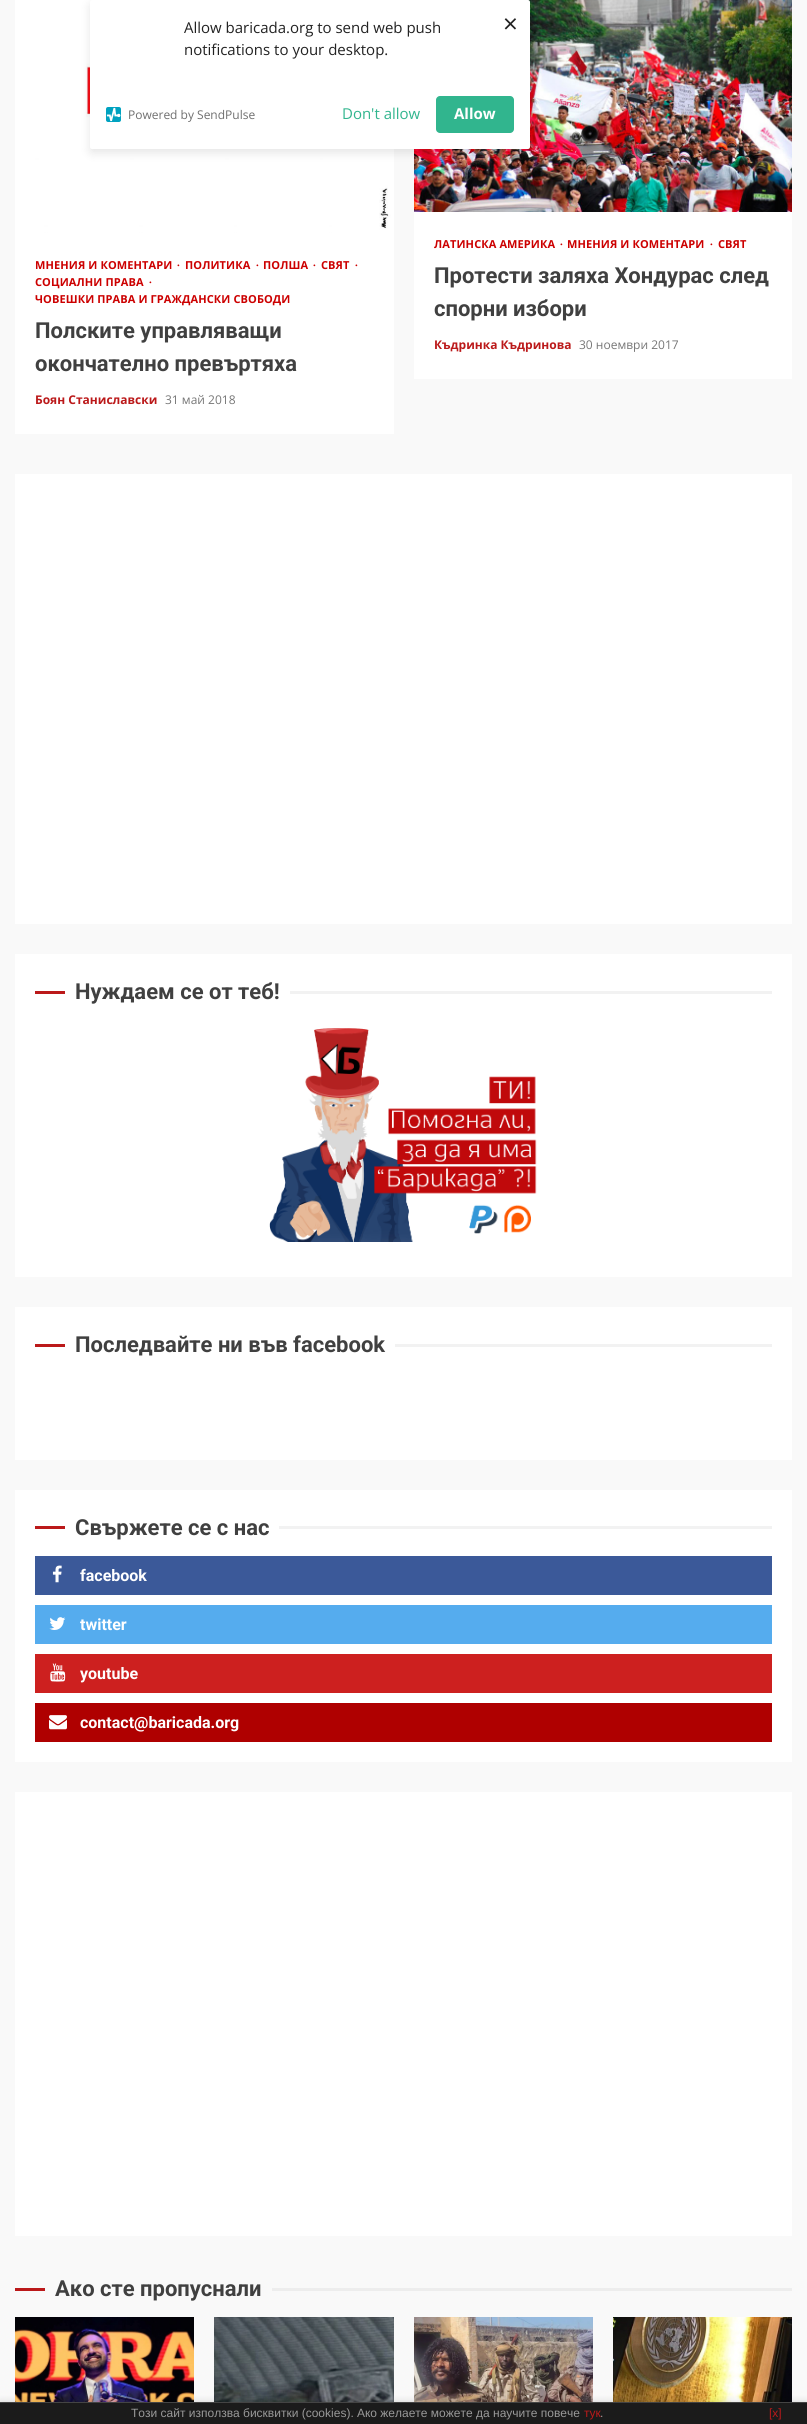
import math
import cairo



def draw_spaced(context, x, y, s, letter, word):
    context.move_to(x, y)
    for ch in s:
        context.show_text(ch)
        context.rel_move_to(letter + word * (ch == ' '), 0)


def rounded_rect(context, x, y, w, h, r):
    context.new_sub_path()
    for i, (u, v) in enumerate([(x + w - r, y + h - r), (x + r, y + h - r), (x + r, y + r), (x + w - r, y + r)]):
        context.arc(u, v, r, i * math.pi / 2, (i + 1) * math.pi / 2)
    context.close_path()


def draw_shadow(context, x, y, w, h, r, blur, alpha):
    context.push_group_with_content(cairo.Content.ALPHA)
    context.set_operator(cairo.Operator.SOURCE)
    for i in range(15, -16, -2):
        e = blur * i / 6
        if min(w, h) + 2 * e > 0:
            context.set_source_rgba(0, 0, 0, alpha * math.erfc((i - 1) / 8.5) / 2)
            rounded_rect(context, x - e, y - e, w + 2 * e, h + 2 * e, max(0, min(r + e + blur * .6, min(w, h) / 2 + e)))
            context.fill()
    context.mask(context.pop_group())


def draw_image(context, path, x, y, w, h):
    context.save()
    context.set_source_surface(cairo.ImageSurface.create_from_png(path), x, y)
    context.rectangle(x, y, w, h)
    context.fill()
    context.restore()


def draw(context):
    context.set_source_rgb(249 / 255, 249 / 255, 249 / 255)
    context.paint()
    draw_image(context, "images/2.png", 15, 0, 379, 233)
    draw_image(context, "images/3.png", 414, 0, 378, 212)
    context.set_source_rgb(0, 0, 0)
    draw_shadow(context, 90, 4, 440, 149, 2, 5, 0.1)
    context.set_source_rgb(1, 1, 1)
    rounded_rect(context, 90, 0, 440, 149, 2)
    context.fill()
    draw_image(context, "images/1.png", 106, 107, 15, 15)
    context.set_source_rgb(49 / 255, 181 / 255, 142 / 255)
    rounded_rect(context, 436, 96, 78, 37, 4)
    context.fill()
    context.set_source_rgb(1, 1, 1)
    context.rectangle(15, 233, 379, 201)
    context.fill()
    context.rectangle(414, 212, 378, 167)
    context.fill()
    context.rectangle(15, 474, 777, 450)
    context.fill()
    context.rectangle(15, 954, 777, 323)
    context.fill()
    context.set_source_rgb(187 / 255, 25 / 255, 26 / 255)
    context.rectangle(35, 991, 30, 3)
    context.fill()
    context.set_source_rgb(242 / 255, 242 / 255, 242 / 255)
    context.rectangle(290, 991, 482, 3)
    context.fill()
    draw_image(context, "images/4.png", 269, 1028, 268, 214)
    context.set_source_rgb(1, 1, 1)
    context.rectangle(15, 1307, 777, 153)
    context.fill()
    context.set_source_rgb(187 / 255, 25 / 255, 26 / 255)
    context.rectangle(35, 1344, 30, 3)
    context.fill()
    context.set_source_rgb(242 / 255, 242 / 255, 242 / 255)
    context.rectangle(395, 1344, 377, 3)
    context.fill()
    context.set_source_rgb(1, 1, 1)
    context.rectangle(15, 1490, 777, 272)
    context.fill()
    context.set_source_rgb(187 / 255, 25 / 255, 26 / 255)
    context.rectangle(35, 1526, 30, 3)
    context.fill()
    context.set_source_rgb(242 / 255, 242 / 255, 242 / 255)
    context.rectangle(279, 1526, 493, 3)
    context.fill()
    context.set_source_rgb(59 / 255, 89 / 255, 153 / 255)
    context.rectangle(35, 1556, 737, 39)
    context.fill()
    draw_image(context, "images/5.png", 52, 1565, 10, 18)
    context.set_source_rgb(85 / 255, 172 / 255, 238 / 255)
    context.rectangle(35, 1605, 737, 39)
    context.fill()
    draw_image(context, "images/6.png", 49, 1617, 17, 13)
    context.set_source_rgb(205 / 255, 32 / 255, 31 / 255)
    context.rectangle(35, 1654, 737, 39)
    context.fill()
    draw_image(context, "images/7.png", 50, 1663, 16, 19)
    context.set_source_rgb(175 / 255, 0, 0)
    context.rectangle(35, 1703, 737, 39)
    context.fill()
    draw_image(context, "images/8.png", 49, 1715, 18, 15)
    context.set_source_rgb(1, 1, 1)
    context.rectangle(15, 1792, 777, 444)
    context.fill()
    context.set_source_rgb(187 / 255, 25 / 255, 26 / 255)
    context.rectangle(15, 2288, 30, 3)
    context.fill()
    context.set_source_rgb(237 / 255, 237 / 255, 237 / 255)
    context.rectangle(272, 2288, 520, 3)
    context.fill()
    draw_image(context, "images/9.png", 15, 2317, 179, 85)
    draw_image(context, "images/10.png", 214, 2317, 180, 85)
    draw_image(context, "images/11.png", 414, 2317, 179, 85)
    draw_image(context, "images/12.png", 613, 2317, 179, 85)
    context.set_source_rgb(0, 0, 0)
    draw_shadow(context, 0, 2402, 807, 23, 0, 4, 0.15)
    context.set_source_rgb(27 / 255, 27 / 255, 27 / 255)
    context.rectangle(0, 2403, 807, 21)
    context.fill()
    context.set_source_rgb(68 / 255, 68 / 255, 68 / 255)
    context.rectangle(0, 2402, 807, 1)
    context.fill()
    context.select_font_face("Open Sans")
    context.set_font_size(15)
    context.set_source_rgb(34 / 255, 34 / 255, 34 / 255)
    context.move_to(184, 33)
    context.show_text("Allow baricada.org to send web push")
    context.move_to(184, 55)
    context.show_text("notifications to your desktop.")
    context.set_font_size(12)
    context.set_source_rgb(111 / 255, 111 / 255, 111 / 255)
    context.move_to(128, 119)
    context.show_text("Powered by SendPulse")
    context.set_font_size(15)
    context.set_source_rgb(49 / 255, 181 / 255, 142 / 255)
    context.move_to(342, 119)
    context.show_text("Don't allow")
    context.select_font_face("Open Sans", cairo.FontSlant.NORMAL, cairo.FontWeight.BOLD)
    context.set_source_rgb(1, 1, 1)
    context.move_to(454, 119)
    context.show_text("Allow")
    context.select_font_face("Open Sans")
    context.set_font_size(26)
    context.set_source_rgb(34 / 255, 34 / 255, 34 / 255)
    context.move_to(503, 33)
    context.show_text("×")
    context.select_font_face("Open Sans", cairo.FontSlant.NORMAL, cairo.FontWeight.BOLD)
    context.set_font_size(11)
    context.set_source_rgb(204 / 255, 0, 0)
    draw_spaced(context, 35, 269, "МНЕНИЯ И КОМЕНТАРИ", 0.1, 0)
    context.select_font_face("Liberation Serif", cairo.FontSlant.NORMAL, cairo.FontWeight.BOLD)
    draw_spaced(context, 177, 269, "∙", 0.1, 0)
    context.select_font_face("Open Sans", cairo.FontSlant.NORMAL, cairo.FontWeight.BOLD)
    draw_spaced(context, 185, 269, "ПОЛИТИКА", 0.1, 0)
    context.select_font_face("Liberation Serif", cairo.FontSlant.NORMAL, cairo.FontWeight.BOLD)
    draw_spaced(context, 256, 269, "∙", 0.1, 0)
    context.select_font_face("Open Sans", cairo.FontSlant.NORMAL, cairo.FontWeight.BOLD)
    draw_spaced(context, 263, 269, "ПОЛША", 0.1, 0)
    context.select_font_face("Liberation Serif", cairo.FontSlant.NORMAL, cairo.FontWeight.BOLD)
    draw_spaced(context, 313, 269, "∙", 0.1, 0)
    context.select_font_face("Open Sans", cairo.FontSlant.NORMAL, cairo.FontWeight.BOLD)
    draw_spaced(context, 321, 269, "СВЯТ", 0.1, 0)
    context.select_font_face("Liberation Serif", cairo.FontSlant.NORMAL, cairo.FontWeight.BOLD)
    draw_spaced(context, 355, 269, "∙", 0.1, 0)
    context.select_font_face("Open Sans", cairo.FontSlant.NORMAL, cairo.FontWeight.BOLD)
    draw_spaced(context, 35, 286, "СОЦИАЛНИ ПРАВА", 0.1, 0)
    context.select_font_face("Liberation Serif", cairo.FontSlant.NORMAL, cairo.FontWeight.BOLD)
    draw_spaced(context, 149, 286, "∙", 0.1, 0)
    context.select_font_face("Open Sans", cairo.FontSlant.NORMAL, cairo.FontWeight.BOLD)
    draw_spaced(context, 35, 303, "ЧОВЕШКИ ПРАВА И ГРАЖДАНСКИ СВОБОДИ", 0.1, 0)
    context.select_font_face("Roboto", cairo.FontSlant.NORMAL, cairo.FontWeight.BOLD)
    context.set_font_size(22)
    context.set_source_rgb(64 / 255, 64 / 255, 64 / 255)
    context.move_to(35, 338)
    context.show_text("Полските управляващи")
    context.move_to(35, 371)
    context.show_text("окончателно превъртяха")
    context.select_font_face("Open Sans", cairo.FontSlant.NORMAL, cairo.FontWeight.BOLD)
    context.set_font_size(12)
    context.set_source_rgb(187 / 255, 25 / 255, 26 / 255)
    context.move_to(35, 404)
    context.show_text("Боян Станиславски")
    context.select_font_face("Open Sans")
    context.set_source_rgb(119 / 255, 119 / 255, 119 / 255)
    context.move_to(165, 404)
    context.show_text("31 май 2018")
    context.select_font_face("Open Sans", cairo.FontSlant.NORMAL, cairo.FontWeight.BOLD)
    context.set_font_size(11)
    context.set_source_rgb(204 / 255, 0, 0)
    draw_spaced(context, 434, 248, "ЛАТИНСКА АМЕРИКА", 0.1, 0)
    context.select_font_face("Liberation Serif", cairo.FontSlant.NORMAL, cairo.FontWeight.BOLD)
    draw_spaced(context, 560, 248, "∙", 0.1, 0)
    context.select_font_face("Open Sans", cairo.FontSlant.NORMAL, cairo.FontWeight.BOLD)
    draw_spaced(context, 567, 248, "МНЕНИЯ И КОМЕНТАРИ", 0.1, 0)
    context.select_font_face("Liberation Serif", cairo.FontSlant.NORMAL, cairo.FontWeight.BOLD)
    draw_spaced(context, 710, 248, "∙", 0.1, 0)
    context.select_font_face("Open Sans", cairo.FontSlant.NORMAL, cairo.FontWeight.BOLD)
    draw_spaced(context, 718, 248, "СВЯТ", 0.1, 0)
    context.select_font_face("Roboto", cairo.FontSlant.NORMAL, cairo.FontWeight.BOLD)
    context.set_font_size(22)
    context.set_source_rgb(64 / 255, 64 / 255, 64 / 255)
    context.move_to(434, 283)
    context.show_text("Протести заляха Хондурас след")
    context.move_to(434, 316)
    context.show_text("спорни избори")
    context.select_font_face("Open Sans", cairo.FontSlant.NORMAL, cairo.FontWeight.BOLD)
    context.set_font_size(12)
    context.set_source_rgb(187 / 255, 25 / 255, 26 / 255)
    context.move_to(434, 349)
    context.show_text("Къдринка Къдринова")
    context.select_font_face("Open Sans")
    context.set_source_rgb(119 / 255, 119 / 255, 119 / 255)
    context.move_to(579, 349)
    context.show_text("30 ноември 2017")
    context.select_font_face("Roboto", cairo.FontSlant.NORMAL, cairo.FontWeight.BOLD)
    context.set_font_size(22)
    context.set_source_rgb(64 / 255, 64 / 255, 64 / 255)
    context.move_to(75, 999)
    context.show_text("Нуждаем се от теб!")
    context.move_to(75, 1352)
    context.show_text("Последвайте ни във facebook")
    context.move_to(75, 1535)
    context.show_text("Свържете се с нас")
    context.set_font_size(16)
    context.set_source_rgb(1, 1, 1)
    context.move_to(80, 1581)
    context.show_text("facebook")
    context.move_to(80, 1630)
    context.show_text("twitter")
    context.move_to(80, 1679)
    context.show_text("youtube")
    context.move_to(80, 1728)
    context.show_text("contact@baricada.org")
    context.set_font_size(22)
    context.set_source_rgb(64 / 255, 64 / 255, 64 / 255)
    context.move_to(55, 2296)
    context.show_text("Ако сте пропуснали")
    context.select_font_face("Liberation Sans")
    context.set_font_size(12)
    context.set_source_rgb(153 / 255, 153 / 255, 153 / 255)
    context.move_to(131, 2417)
    context.show_text("Този сайт използва бисквитки (cookies). Ако желаете можете да научите повече")
    context.set_source_rgb(187 / 255, 25 / 255, 26 / 255)
    context.move_to(584, 2417)
    context.show_text("тук")
    context.set_source_rgb(153 / 255, 153 / 255, 153 / 255)
    context.move_to(600, 2417)
    context.show_text(".")
    context.set_source_rgb(187 / 255, 25 / 255, 26 / 255)
    context.move_to(769, 2417)
    context.show_text("[x]")


surface = cairo.ImageSurface(cairo.Format.RGB24, 807, 2424)
context = cairo.Context(surface)
options = cairo.FontOptions()
options.set_hint_metrics(cairo.HintMetrics.OFF)
options.set_hint_style(cairo.HintStyle.NONE)
context.set_font_options(options)
context.set_miter_limit(4)
draw(context)
surface.write_to_png("out.png")
